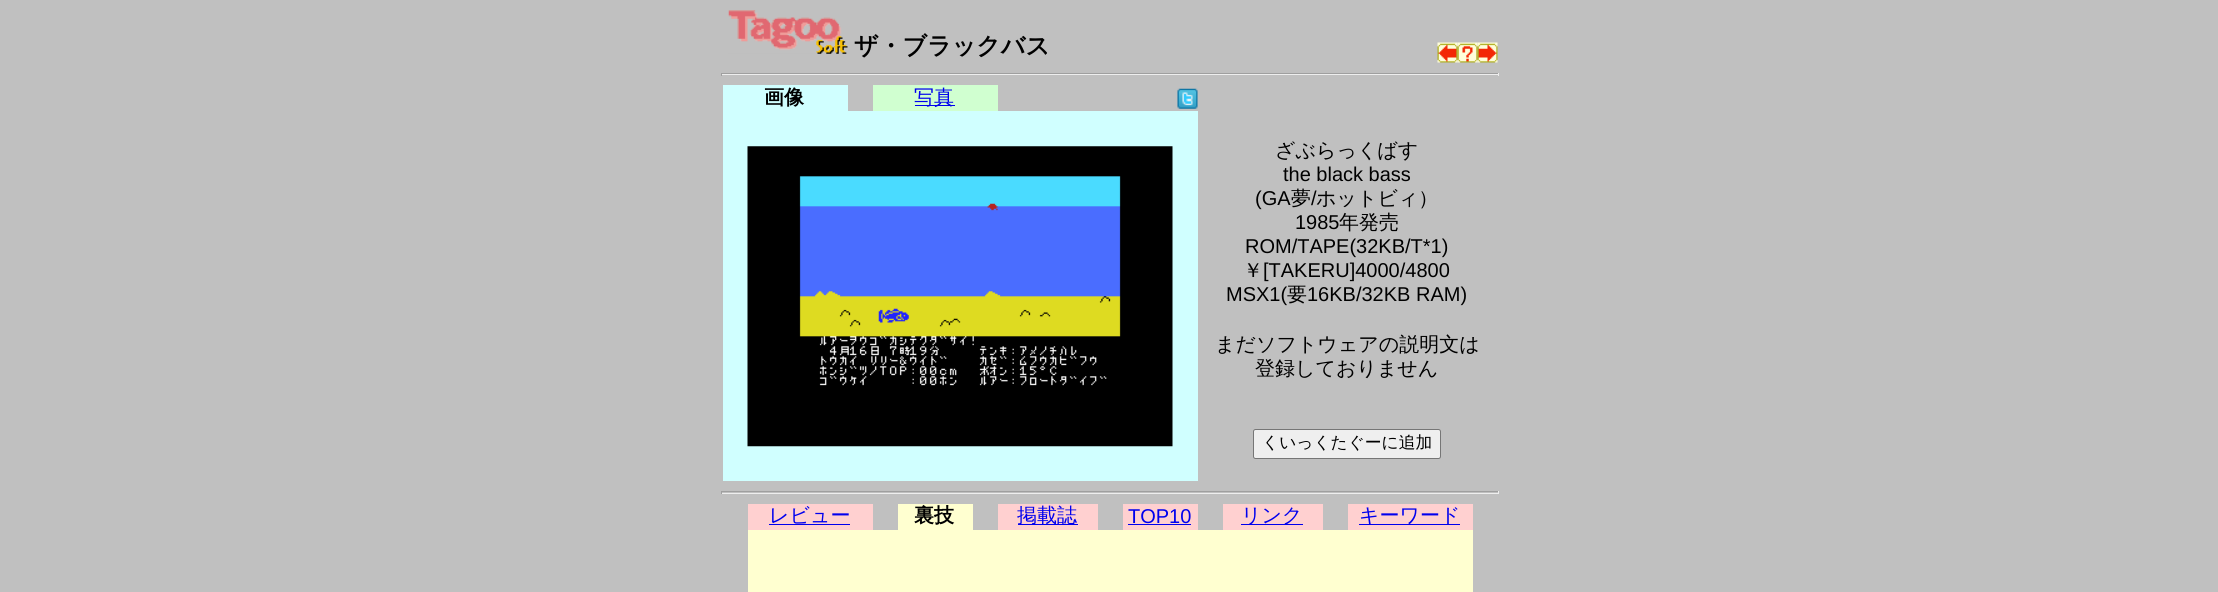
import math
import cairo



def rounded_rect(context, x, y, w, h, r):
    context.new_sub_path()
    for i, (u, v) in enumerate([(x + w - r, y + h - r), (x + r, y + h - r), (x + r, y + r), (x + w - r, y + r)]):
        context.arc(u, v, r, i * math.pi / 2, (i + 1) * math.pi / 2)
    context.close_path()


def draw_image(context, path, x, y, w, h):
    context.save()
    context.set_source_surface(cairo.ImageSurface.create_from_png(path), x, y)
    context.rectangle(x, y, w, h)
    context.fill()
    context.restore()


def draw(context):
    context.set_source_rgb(192 / 255, 192 / 255, 192 / 255)
    context.paint()
    draw_image(context, "images/1.png", 728, 10, 120, 44)
    draw_image(context, "images/2.png", 1437, 42, 21, 21)
    draw_image(context, "images/3.png", 1457, 42, 21, 21)
    draw_image(context, "images/4.png", 1477, 42, 21, 21)
    context.set_source_rgb(159 / 255, 159 / 255, 159 / 255)
    context.rectangle(721, 73, 778, 1)
    context.fill()
    context.set_source_rgb(238 / 255, 238 / 255, 238 / 255)
    context.rectangle(1498, 73, 1, 3)
    context.fill()
    context.rectangle(721, 74, 778, 1)
    context.fill()
    context.set_source_rgb(159 / 255, 159 / 255, 159 / 255)
    context.rectangle(721, 73, 1, 3)
    context.fill()
    context.set_source_rgb(208 / 255, 1, 1)
    context.rectangle(723, 85, 125, 26)
    context.fill()
    context.set_source_rgb(208 / 255, 1, 208 / 255)
    context.rectangle(873, 85, 125, 26)
    context.fill()
    context.set_source_rgb(0, 0, 238 / 255)
    context.rectangle(915, 105, 40, 1)
    context.fill()
    draw_image(context, "images/5.png", 1177, 88, 21, 21)
    context.set_source_rgb(208 / 255, 1, 1)
    context.rectangle(723, 111, 475, 370)
    context.fill()
    draw_image(context, "images/6.png", 747, 146, 426, 301)
    context.set_source_rgb(239 / 255, 239 / 255, 239 / 255)
    rounded_rect(context, 1253.5, 429.5, 187, 29, 2)
    context.fill_preserve()
    context.set_source_rgb(118 / 255, 118 / 255, 118 / 255)
    context.set_line_width(1)
    context.stroke()
    context.set_source_rgb(159 / 255, 159 / 255, 159 / 255)
    context.rectangle(721, 491, 778, 1)
    context.fill()
    context.set_source_rgb(238 / 255, 238 / 255, 238 / 255)
    context.rectangle(1498, 491, 1, 3)
    context.fill()
    context.rectangle(721, 493, 778, 1)
    context.fill()
    context.set_source_rgb(159 / 255, 159 / 255, 159 / 255)
    context.rectangle(721, 491, 1, 3)
    context.fill()
    context.set_source_rgb(1, 208 / 255, 208 / 255)
    context.rectangle(748, 504, 125, 26)
    context.fill()
    context.set_source_rgb(0, 0, 238 / 255)
    context.rectangle(769, 524, 81, 1)
    context.fill()
    context.set_source_rgb(1, 1, 208 / 255)
    context.rectangle(898, 504, 75, 26)
    context.fill()
    context.set_source_rgb(1, 208 / 255, 208 / 255)
    context.rectangle(998, 504, 100, 26)
    context.fill()
    context.set_source_rgb(0, 0, 238 / 255)
    context.rectangle(1018, 524, 60, 1)
    context.fill()
    context.set_source_rgb(1, 208 / 255, 208 / 255)
    context.rectangle(1123, 504, 75, 26)
    context.fill()
    context.set_source_rgb(0, 0, 238 / 255)
    context.rectangle(1128, 524, 63, 1)
    context.fill()
    context.set_source_rgb(1, 208 / 255, 208 / 255)
    context.rectangle(1223, 504, 100, 26)
    context.fill()
    context.set_source_rgb(0, 0, 238 / 255)
    context.rectangle(1241, 524, 62, 1)
    context.fill()
    context.set_source_rgb(1, 208 / 255, 208 / 255)
    context.rectangle(1348, 504, 125, 26)
    context.fill()
    context.set_source_rgb(0, 0, 238 / 255)
    context.rectangle(1359, 524, 101, 1)
    context.fill()
    context.set_source_rgb(1, 1, 208 / 255)
    context.rectangle(748, 530, 725, 62)
    context.fill()
    context.select_font_face("WenQuanYi Zen Hei", cairo.FontSlant.NORMAL, cairo.FontWeight.BOLD)
    context.set_font_size(24)
    context.set_source_rgb(0, 0, 0)
    context.move_to(854, 54)
    context.show_text("ザ・ブラックバス")
    context.set_font_size(20)
    context.move_to(764, 104)
    context.show_text("画像")
    context.select_font_face("WenQuanYi Zen Hei Medium")
    context.set_source_rgb(0, 0, 238 / 255)
    context.move_to(914, 104)
    context.show_text("写真")
    context.set_source_rgb(0, 0, 0)
    context.move_to(1275, 157)
    context.show_text("ざぶらっくばす")
    context.select_font_face("Liberation Sans")
    context.move_to(1283, 181)
    context.show_text("the black bass")
    context.move_to(1255, 205)
    context.show_text("(GA")
    context.select_font_face("WenQuanYi Zen Hei Medium")
    context.move_to(1291, 205)
    context.show_text("夢")
    context.select_font_face("Liberation Sans")
    context.move_to(1311, 205)
    context.show_text("/")
    context.select_font_face("WenQuanYi Zen Hei Medium")
    context.move_to(1316, 205)
    context.show_text("ホットビィ）")
    context.select_font_face("Liberation Sans")
    context.move_to(1295, 229)
    context.show_text("1985")
    context.select_font_face("WenQuanYi Zen Hei Medium")
    context.move_to(1339, 229)
    context.show_text("年発売")
    context.select_font_face("Liberation Sans")
    context.move_to(1245, 253)
    context.show_text("ROM/TAPE(32KB/T*1)")
    context.select_font_face("WenQuanYi Zen Hei Medium")
    context.move_to(1243, 277)
    context.show_text("￥")
    context.select_font_face("Liberation Sans")
    context.move_to(1263, 277)
    context.show_text("[TAKERU]4000/4800")
    context.move_to(1226, 301)
    context.show_text("MSX1(")
    context.select_font_face("WenQuanYi Zen Hei Medium")
    context.move_to(1287, 301)
    context.show_text("要")
    context.select_font_face("Liberation Sans")
    context.move_to(1307, 301)
    context.show_text("16KB/32KB RAM)")
    context.select_font_face("WenQuanYi Zen Hei Medium")
    context.move_to(1215, 351)
    context.show_text("まだソフトウェアの説明文は")
    context.move_to(1255, 375)
    context.show_text("登録しておりません")
    context.set_font_size(16.75)
    context.move_to(1262, 448)
    context.show_text("くいっくたぐーに追加")
    context.set_font_size(20)
    context.set_source_rgb(0, 0, 238 / 255)
    context.move_to(769, 522)
    context.show_text("レビュー")
    context.select_font_face("WenQuanYi Zen Hei", cairo.FontSlant.NORMAL, cairo.FontWeight.BOLD)
    context.set_source_rgb(0, 0, 0)
    context.move_to(914, 522)
    context.show_text("裏技")
    context.select_font_face("WenQuanYi Zen Hei Medium")
    context.set_source_rgb(0, 0, 238 / 255)
    context.move_to(1017, 522)
    context.show_text("掲載誌")
    context.select_font_face("Liberation Sans")
    context.move_to(1128, 523)
    context.show_text("TOP10")
    context.select_font_face("WenQuanYi Zen Hei Medium")
    context.move_to(1241, 522)
    context.show_text("リンク")
    context.move_to(1359, 522)
    context.show_text("キーワード")


surface = cairo.ImageSurface(cairo.Format.RGB24, 2218, 592)
context = cairo.Context(surface)
options = cairo.FontOptions()
options.set_hint_metrics(cairo.HintMetrics.OFF)
options.set_hint_style(cairo.HintStyle.NONE)
context.set_font_options(options)
context.set_miter_limit(4)
draw(context)
surface.write_to_png("out.png")
